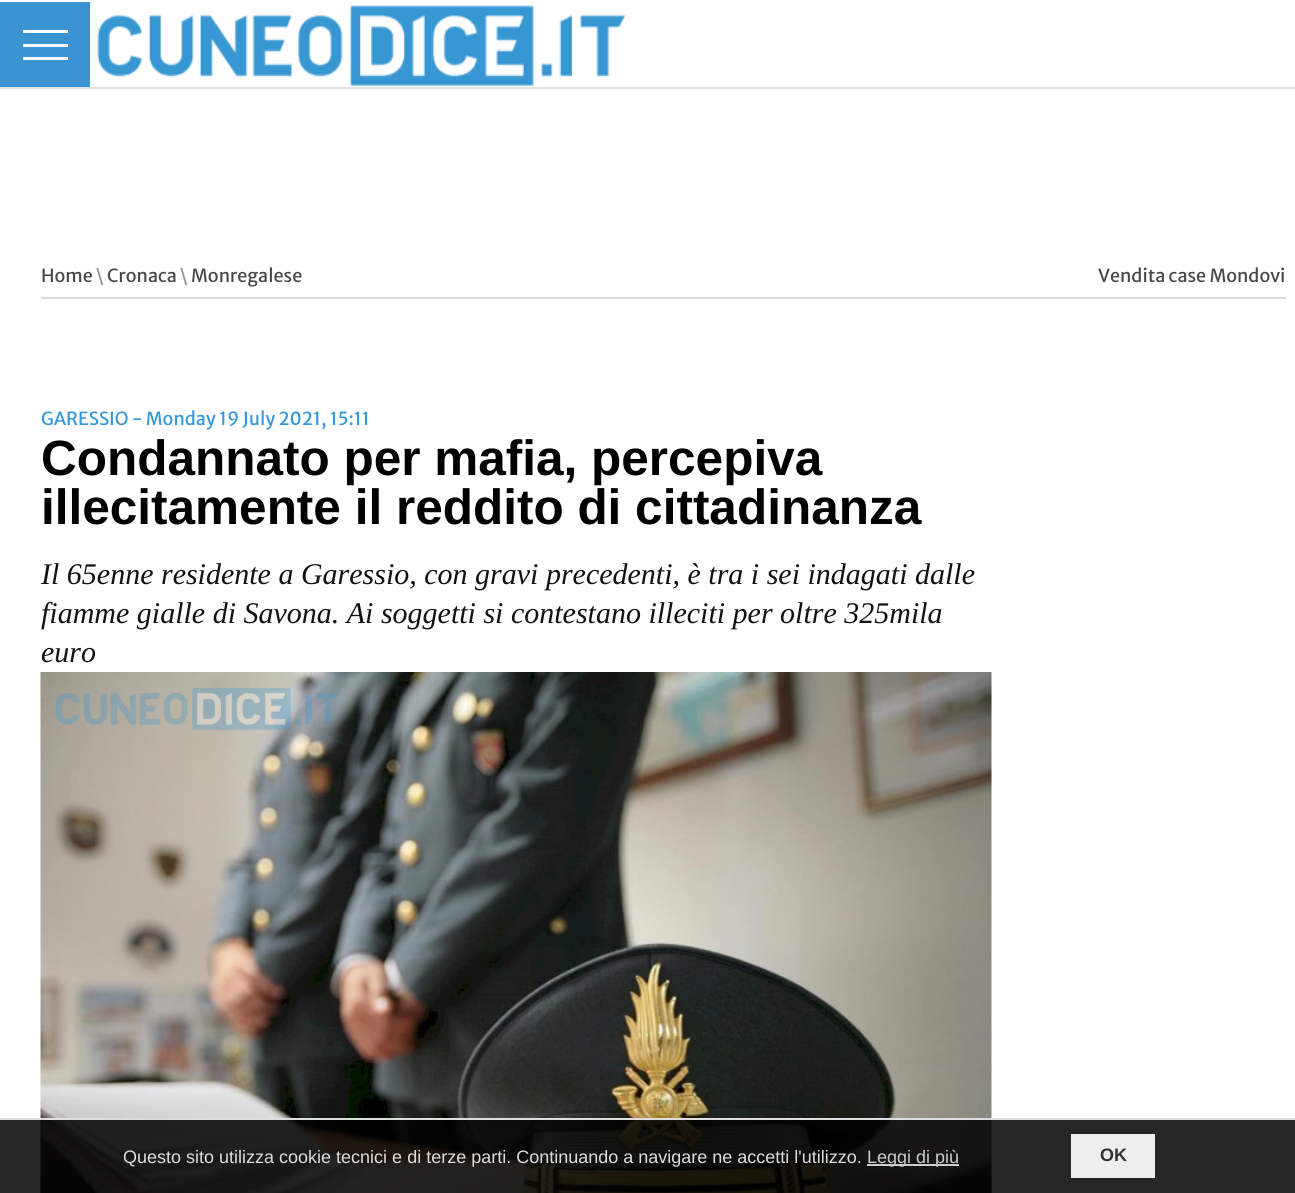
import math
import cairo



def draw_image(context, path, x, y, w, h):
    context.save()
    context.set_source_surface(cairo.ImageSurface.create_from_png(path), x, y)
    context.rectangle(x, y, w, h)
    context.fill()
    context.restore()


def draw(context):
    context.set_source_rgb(1, 1, 1)
    context.paint()
    context.set_source_rgb(226 / 255, 226 / 255, 226 / 255)
    context.rectangle(0, 87, 1295, 2)
    context.fill()
    context.set_source_rgb(57 / 255, 148 / 255, 209 / 255)
    context.rectangle(0, 2, 90, 85)
    context.fill()
    context.set_source_rgb(1, 1, 1)
    context.rectangle(23, 30, 45, 3)
    context.fill()
    context.rectangle(23, 44, 45, 3)
    context.fill()
    context.rectangle(23, 57, 45, 3)
    context.fill()
    draw_image(context, "images/1.png", 97, 5, 529, 82)
    context.set_source_rgb(219 / 255, 219 / 255, 219 / 255)
    context.rectangle(41, 297, 1245, 2)
    context.fill()
    draw_image(context, "images/2.png", 40, 672, 952, 521)
    draw_image(context, "images/3.png", 55, 687, 285, 43)
    context.set_source_rgba(0, 0, 0, 0.85)
    context.rectangle(0, 1120, 1295, 73)
    context.fill()
    context.set_source_rgb(221 / 255, 221 / 255, 221 / 255)
    context.rectangle(0, 1118, 1295, 2)
    context.fill()
    context.set_source_rgb(204 / 255, 204 / 255, 204 / 255)
    context.rectangle(867, 1164, 92, 2)
    context.fill()
    context.set_source_rgb(238 / 255, 238 / 255, 238 / 255)
    context.rectangle(1071, 1134, 84, 44)
    context.fill()
    context.select_font_face("Merriweather Sans")
    context.set_font_size(18)
    context.set_source_rgb(72 / 255, 72 / 255, 72 / 255)
    context.move_to(41, 282)
    context.show_text("Home")
    context.set_source_rgb(146 / 255, 146 / 255, 146 / 255)
    context.move_to(96, 282)
    context.show_text("\\")
    context.set_source_rgb(72 / 255, 72 / 255, 72 / 255)
    context.move_to(107, 282)
    context.show_text("Cronaca")
    context.set_source_rgb(146 / 255, 146 / 255, 146 / 255)
    context.move_to(180, 282)
    context.show_text("\\")
    context.set_source_rgb(72 / 255, 72 / 255, 72 / 255)
    context.move_to(191, 282)
    context.show_text("Monregalese")
    context.move_to(1098, 282)
    context.show_text("Vendita case Mondovi")
    context.set_source_rgb(52 / 255, 152 / 255, 219 / 255)
    context.move_to(41, 425)
    context.show_text("GARESSIO - Monday 19 July 2021, 15:11")
    context.select_font_face("Liberation Sans", cairo.FontSlant.NORMAL, cairo.FontWeight.BOLD)
    context.set_font_size(49.5)
    context.set_source_rgb(0, 0, 0)
    context.move_to(41, 475)
    context.show_text("Condannato per mafia, percepiva")
    context.move_to(41, 524)
    context.show_text("illecitamente il reddito di cittadinanza")
    context.select_font_face("Liberation Serif", cairo.FontSlant.ITALIC)
    context.set_font_size(30)
    context.set_source_rgb(17 / 255, 17 / 255, 17 / 255)
    context.move_to(41, 584)
    context.show_text("Il 65enne residente a Garessio, con gravi precedenti, è tra i sei indagati dalle")
    context.move_to(41, 623)
    context.show_text("fiamme gialle di Savona. Ai soggetti si contestano illeciti per oltre 325mila")
    context.move_to(41, 662)
    context.show_text("euro")
    context.select_font_face("Liberation Sans")
    context.set_font_size(18)
    context.set_source_rgb(221 / 255, 221 / 255, 221 / 255)
    context.move_to(123, 1163)
    context.show_text("Questo sito utilizza cookie tecnici e di terze parti. Continuando a navigare ne accetti l'utilizzo.")
    context.set_source_rgb(204 / 255, 204 / 255, 204 / 255)
    context.move_to(867, 1163)
    context.show_text("Leggi di più")
    context.select_font_face("Liberation Sans", cairo.FontSlant.NORMAL, cairo.FontWeight.BOLD)
    context.set_source_rgb(51 / 255, 51 / 255, 51 / 255)
    context.move_to(1100, 1161)
    context.show_text("OK")


surface = cairo.ImageSurface(cairo.Format.RGB24, 1295, 1193)
context = cairo.Context(surface)
options = cairo.FontOptions()
options.set_hint_metrics(cairo.HintMetrics.OFF)
options.set_hint_style(cairo.HintStyle.NONE)
context.set_font_options(options)
context.set_miter_limit(4)
draw(context)
surface.write_to_png("out.png")
